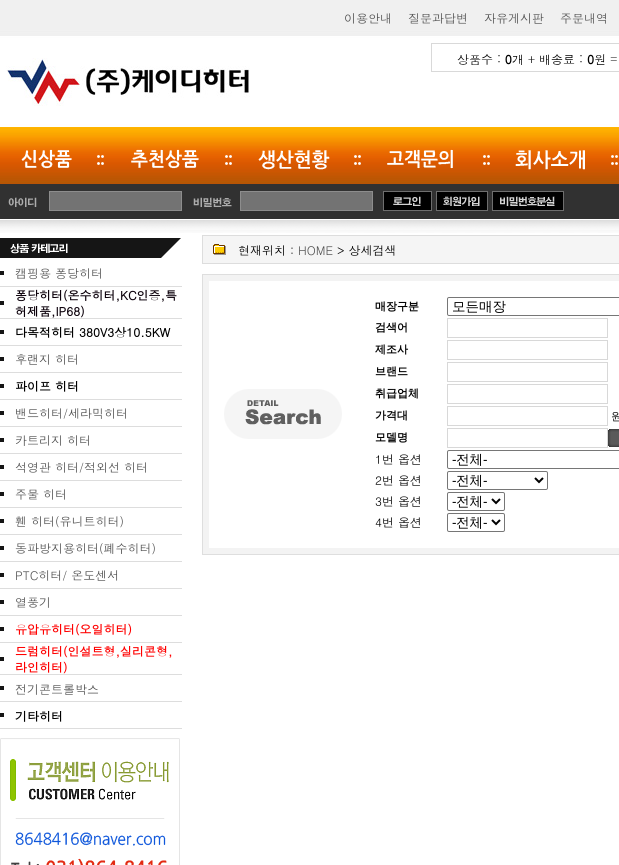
import math
import cairo



def rounded_rect(context, x, y, w, h, r):
    context.new_sub_path()
    for i, (u, v) in enumerate([(x + w - r, y + h - r), (x + r, y + h - r), (x + r, y + r), (x + w - r, y + r)]):
        context.arc(u, v, r, i * math.pi / 2, (i + 1) * math.pi / 2)
    context.close_path()


def draw_image(context, path, x, y, w, h):
    context.save()
    context.set_source_surface(cairo.ImageSurface.create_from_png(path), x, y)
    context.rectangle(x, y, w, h)
    context.fill()
    context.restore()


def draw(context):
    context.set_source_rgb(1, 1, 1)
    context.paint()
    draw_image(context, "images/1.png", 0, 0, 619, 233)
    context.rectangle(431.5, 43.5, 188, 28)
    context.set_source_rgb(217 / 255, 217 / 255, 217 / 255)
    context.set_line_width(1)
    context.stroke()
    draw_image(context, "images/2.png", 457, 54, 160, 11)
    draw_image(context, "images/3.png", 6, 58, 244, 48)
    draw_image(context, "images/4.png", 21, 149, 51, 20)
    draw_image(context, "images/5.png", 97, 155, 7, 10)
    draw_image(context, "images/6.png", 131, 149, 68, 20)
    draw_image(context, "images/5.png", 225, 155, 7, 10)
    draw_image(context, "images/7.png", 258, 150, 72, 20)
    draw_image(context, "images/5.png", 354, 155, 7, 10)
    draw_image(context, "images/8.png", 387, 149, 66, 20)
    draw_image(context, "images/5.png", 483, 155, 7, 10)
    draw_image(context, "images/9.png", 515, 150, 70, 20)
    draw_image(context, "images/5.png", 611, 155, 7, 10)
    draw_image(context, "images/10.png", 0, 184, 619, 46)
    draw_image(context, "images/11.png", 8, 197, 29, 10)
    context.set_source_rgb(115 / 255, 115 / 255, 115 / 255)
    context.rectangle(49.5, 191.5, 132, 19)
    context.fill_preserve()
    context.set_source_rgb(141 / 255, 141 / 255, 141 / 255)
    context.stroke()
    draw_image(context, "images/12.png", 193, 197, 39, 10)
    context.set_source_rgb(115 / 255, 115 / 255, 115 / 255)
    context.rectangle(240.5, 191.5, 132, 19)
    context.fill_preserve()
    context.set_source_rgb(141 / 255, 141 / 255, 141 / 255)
    context.stroke()
    draw_image(context, "images/13.png", 383, 191, 49, 20)
    draw_image(context, "images/14.png", 436, 191, 52, 20)
    draw_image(context, "images/15.png", 492, 191, 72, 20)
    draw_image(context, "images/16.png", 0, 238, 181, 20)
    context.set_source_rgb(221 / 255, 221 / 255, 221 / 255)
    context.rectangle(0, 286, 182, 1)
    context.fill()
    context.set_source_rgb(21 / 255, 21 / 255, 21 / 255)
    context.rectangle(0, 271, 4, 4)
    context.fill()
    context.set_source_rgb(221 / 255, 221 / 255, 221 / 255)
    context.rectangle(0, 318, 182, 1)
    context.fill()
    context.set_source_rgb(21 / 255, 21 / 255, 21 / 255)
    context.rectangle(0, 301, 4, 4)
    context.fill()
    context.set_source_rgb(221 / 255, 221 / 255, 221 / 255)
    context.rectangle(0, 345, 182, 1)
    context.fill()
    context.set_source_rgb(21 / 255, 21 / 255, 21 / 255)
    context.rectangle(0, 330, 4, 4)
    context.fill()
    context.set_source_rgb(221 / 255, 221 / 255, 221 / 255)
    context.rectangle(0, 372, 182, 1)
    context.fill()
    context.set_source_rgb(21 / 255, 21 / 255, 21 / 255)
    context.rectangle(0, 357, 4, 4)
    context.fill()
    context.set_source_rgb(221 / 255, 221 / 255, 221 / 255)
    context.rectangle(0, 399, 182, 1)
    context.fill()
    context.set_source_rgb(21 / 255, 21 / 255, 21 / 255)
    context.rectangle(0, 384, 4, 4)
    context.fill()
    context.set_source_rgb(221 / 255, 221 / 255, 221 / 255)
    context.rectangle(0, 426, 182, 1)
    context.fill()
    context.set_source_rgb(21 / 255, 21 / 255, 21 / 255)
    context.rectangle(0, 411, 4, 4)
    context.fill()
    context.set_source_rgb(221 / 255, 221 / 255, 221 / 255)
    context.rectangle(0, 453, 182, 1)
    context.fill()
    context.set_source_rgb(21 / 255, 21 / 255, 21 / 255)
    context.rectangle(0, 438, 4, 4)
    context.fill()
    context.set_source_rgb(221 / 255, 221 / 255, 221 / 255)
    context.rectangle(0, 480, 182, 1)
    context.fill()
    context.set_source_rgb(21 / 255, 21 / 255, 21 / 255)
    context.rectangle(0, 465, 4, 4)
    context.fill()
    context.set_source_rgb(221 / 255, 221 / 255, 221 / 255)
    context.rectangle(0, 507, 182, 1)
    context.fill()
    context.set_source_rgb(21 / 255, 21 / 255, 21 / 255)
    context.rectangle(0, 492, 4, 4)
    context.fill()
    context.set_source_rgb(221 / 255, 221 / 255, 221 / 255)
    context.rectangle(0, 534, 182, 1)
    context.fill()
    context.set_source_rgb(21 / 255, 21 / 255, 21 / 255)
    context.rectangle(0, 519, 4, 4)
    context.fill()
    context.set_source_rgb(221 / 255, 221 / 255, 221 / 255)
    context.rectangle(0, 561, 182, 1)
    context.fill()
    context.set_source_rgb(21 / 255, 21 / 255, 21 / 255)
    context.rectangle(0, 546, 4, 4)
    context.fill()
    context.set_source_rgb(221 / 255, 221 / 255, 221 / 255)
    context.rectangle(0, 588, 182, 1)
    context.fill()
    context.set_source_rgb(21 / 255, 21 / 255, 21 / 255)
    context.rectangle(0, 573, 4, 4)
    context.fill()
    context.set_source_rgb(221 / 255, 221 / 255, 221 / 255)
    context.rectangle(0, 615, 182, 1)
    context.fill()
    context.set_source_rgb(21 / 255, 21 / 255, 21 / 255)
    context.rectangle(0, 600, 4, 4)
    context.fill()
    context.set_source_rgb(221 / 255, 221 / 255, 221 / 255)
    context.rectangle(0, 642, 182, 1)
    context.fill()
    context.set_source_rgb(21 / 255, 21 / 255, 21 / 255)
    context.rectangle(0, 627, 4, 4)
    context.fill()
    context.set_source_rgb(221 / 255, 221 / 255, 221 / 255)
    context.rectangle(0, 674, 182, 1)
    context.fill()
    context.set_source_rgb(21 / 255, 21 / 255, 21 / 255)
    context.rectangle(0, 657, 4, 4)
    context.fill()
    context.set_source_rgb(221 / 255, 221 / 255, 221 / 255)
    context.rectangle(0, 701, 182, 1)
    context.fill()
    context.set_source_rgb(21 / 255, 21 / 255, 21 / 255)
    context.rectangle(0, 686, 4, 4)
    context.fill()
    context.set_source_rgb(221 / 255, 221 / 255, 221 / 255)
    context.rectangle(0, 728, 182, 1)
    context.fill()
    context.set_source_rgb(21 / 255, 21 / 255, 21 / 255)
    context.rectangle(0, 713, 4, 4)
    context.fill()
    draw_image(context, "images/17.png", 0, 738, 180, 127)
    context.set_source_rgb(245 / 255, 245 / 255, 245 / 255)
    context.rectangle(202.5, 235.5, 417, 28)
    context.fill_preserve()
    context.set_source_rgb(221 / 255, 221 / 255, 221 / 255)
    context.stroke()
    draw_image(context, "images/18.png", 213, 244, 13, 11)
    context.set_source_rgb(222 / 255, 222 / 255, 222 / 255)
    context.rectangle(202, 274, 417, 281)
    context.fill()
    context.set_source_rgb(243 / 255, 243 / 255, 243 / 255)
    context.rectangle(203, 275, 416, 279)
    context.fill()
    context.set_source_rgb(1, 1, 1)
    context.rectangle(209, 281, 410, 267)
    context.fill()
    draw_image(context, "images/19.png", 224, 389, 118, 50)
    rounded_rect(context, 447.5, 297.5, 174, 18, 1.5)
    context.set_source_rgb(118 / 255, 118 / 255, 118 / 255)
    context.stroke()
    context.rectangle(447.5, 318.5, 160, 19)
    context.set_source_rgb(216 / 255, 216 / 255, 216 / 255)
    context.stroke()
    context.rectangle(447.5, 340.5, 160, 19)
    context.stroke()
    context.rectangle(447.5, 362.5, 160, 19)
    context.stroke()
    context.rectangle(447.5, 384.5, 160, 19)
    context.stroke()
    context.rectangle(447.5, 406.5, 160, 19)
    context.stroke()
    context.rectangle(447.5, 428.5, 160, 19)
    context.stroke()
    draw_image(context, "images/20.png", 608, 429, 11, 18)
    rounded_rect(context, 447.5, 450.5, 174, 18, 1.5)
    context.set_source_rgb(118 / 255, 118 / 255, 118 / 255)
    context.stroke()
    rounded_rect(context, 447.5, 471.5, 100, 18, 1.5)
    context.stroke()
    context.new_path()
    context.move_to(535, 478)
    context.line_to(539, 482)
    context.line_to(543, 478)
    context.set_source_rgb(0, 0, 0)
    context.set_line_width(2)
    context.stroke()
    rounded_rect(context, 447.5, 492.5, 57, 18, 1.5)
    context.set_source_rgb(118 / 255, 118 / 255, 118 / 255)
    context.set_line_width(1)
    context.stroke()
    context.new_path()
    context.move_to(492, 499)
    context.line_to(496, 503)
    context.line_to(500, 499)
    context.set_source_rgb(0, 0, 0)
    context.set_line_width(2)
    context.stroke()
    rounded_rect(context, 447.5, 513.5, 57, 18, 1.5)
    context.set_source_rgb(118 / 255, 118 / 255, 118 / 255)
    context.set_line_width(1)
    context.stroke()
    context.new_path()
    context.move_to(492, 520)
    context.line_to(496, 524)
    context.line_to(500, 520)
    context.set_source_rgb(0, 0, 0)
    context.set_line_width(2)
    context.stroke()
    context.select_font_face("Dotum")
    context.set_font_size(12)
    context.set_source_rgb(79 / 255, 79 / 255, 79 / 255)
    context.move_to(344, 23)
    context.show_text("이용안내")
    context.move_to(408, 23)
    context.show_text("질문과답변")
    context.move_to(484, 23)
    context.show_text("자유게시판")
    context.move_to(560, 23)
    context.show_text("주문내역")
    context.move_to(15, 278)
    context.show_text("캠핑용 퐁당히터")
    context.select_font_face("Dotum", cairo.FontSlant.NORMAL, cairo.FontWeight.BOLD)
    context.set_source_rgb(11 / 255, 0, 10 / 255)
    context.move_to(15, 300)
    context.show_text("퐁당히터(온수히터,KC인증,특")
    context.move_to(15, 316)
    context.show_text("허제품,IP68)")
    context.set_source_rgb(0, 0, 0)
    context.move_to(15, 337)
    context.show_text("다목적히터 380V3상10.5KW")
    context.select_font_face("Dotum")
    context.set_source_rgb(79 / 255, 79 / 255, 79 / 255)
    context.move_to(15, 364)
    context.show_text("후랜지 히터")
    context.select_font_face("Dotum", cairo.FontSlant.NORMAL, cairo.FontWeight.BOLD)
    context.set_source_rgb(0, 0, 0)
    context.move_to(15, 391)
    context.show_text("파이프 히터")
    context.select_font_face("Dotum")
    context.set_source_rgb(79 / 255, 79 / 255, 79 / 255)
    context.move_to(15, 418)
    context.show_text("밴드히터/세라믹히터")
    context.move_to(15, 445)
    context.show_text("카트리지 히터")
    context.move_to(15, 472)
    context.show_text("석영관 히터/적외선 히터")
    context.move_to(15, 499)
    context.show_text("주물 히터")
    context.move_to(15, 526)
    context.show_text("휀 히터(유니트히터)")
    context.move_to(15, 553)
    context.show_text("동파방지용히터(폐수히터)")
    context.move_to(15, 580)
    context.show_text("PTC히터/ 온도센서")
    context.move_to(15, 607)
    context.show_text("열풍기")
    context.select_font_face("Dotum", cairo.FontSlant.NORMAL, cairo.FontWeight.BOLD)
    context.set_source_rgb(1, 0, 0)
    context.move_to(15, 634)
    context.show_text("유압유히터(오일히터)")
    context.move_to(15, 656)
    context.show_text("드럼히터(인설트형,실리콘형,")
    context.move_to(15, 672)
    context.show_text("라인히터)")
    context.select_font_face("Dotum")
    context.set_source_rgb(79 / 255, 79 / 255, 79 / 255)
    context.move_to(15, 694)
    context.show_text("전기콘트롤박스")
    context.select_font_face("Dotum", cairo.FontSlant.NORMAL, cairo.FontWeight.BOLD)
    context.set_source_rgb(0, 0, 0)
    context.move_to(15, 721)
    context.show_text("기타히터")
    context.select_font_face("Dotum")
    context.move_to(238, 255)
    context.show_text("현재위치 :")
    context.set_source_rgb(79 / 255, 79 / 255, 79 / 255)
    context.move_to(298, 255)
    context.show_text("HOME")
    context.set_source_rgb(0, 0, 0)
    context.move_to(337, 255)
    context.show_text("> 상세검색")
    context.select_font_face("WenQuanYi Zen Hei", cairo.FontSlant.NORMAL, cairo.FontWeight.BOLD)
    context.set_font_size(11)
    context.move_to(375, 310)
    context.show_text("매장구분")
    context.select_font_face("WenQuanYi Zen Hei Medium")
    context.set_font_size(13.5)
    context.move_to(452, 311)
    context.show_text("모든매장")
    context.select_font_face("WenQuanYi Zen Hei", cairo.FontSlant.NORMAL, cairo.FontWeight.BOLD)
    context.set_font_size(11)
    context.move_to(375, 331)
    context.show_text("검색어")
    context.move_to(375, 353)
    context.show_text("제조사")
    context.move_to(375, 375)
    context.show_text("브랜드")
    context.move_to(375, 397)
    context.show_text("취급업체")
    context.move_to(375, 419)
    context.show_text("가격대")
    context.select_font_face("WenQuanYi Zen Hei Medium")
    context.move_to(611, 420)
    context.show_text("원")
    context.select_font_face("WenQuanYi Zen Hei", cairo.FontSlant.NORMAL, cairo.FontWeight.BOLD)
    context.move_to(375, 441)
    context.show_text("모델명")
    context.select_font_face("Dotum")
    context.set_font_size(12)
    context.move_to(375, 464)
    context.show_text("1번 옵션")
    context.select_font_face("Liberation Sans")
    context.set_font_size(13.5)
    context.move_to(452, 464)
    context.show_text("-")
    context.select_font_face("WenQuanYi Zen Hei Medium")
    context.move_to(456, 464)
    context.show_text("전체")
    context.select_font_face("Liberation Sans")
    context.move_to(483, 464)
    context.show_text("-")
    context.select_font_face("Dotum")
    context.set_font_size(12)
    context.move_to(375, 485)
    context.show_text("2번 옵션")
    context.select_font_face("Liberation Sans")
    context.set_font_size(13.5)
    context.move_to(452, 485)
    context.show_text("-")
    context.select_font_face("WenQuanYi Zen Hei Medium")
    context.move_to(456, 485)
    context.show_text("전체")
    context.select_font_face("Liberation Sans")
    context.move_to(483, 485)
    context.show_text("-")
    context.select_font_face("Dotum")
    context.set_font_size(12)
    context.move_to(375, 506)
    context.show_text("3번 옵션")
    context.select_font_face("Liberation Sans")
    context.set_font_size(13.5)
    context.move_to(452, 506)
    context.show_text("-")
    context.select_font_face("WenQuanYi Zen Hei Medium")
    context.move_to(456, 506)
    context.show_text("전체")
    context.select_font_face("Liberation Sans")
    context.move_to(483, 506)
    context.show_text("-")
    context.select_font_face("Dotum")
    context.set_font_size(12)
    context.move_to(375, 527)
    context.show_text("4번 옵션")
    context.select_font_face("Liberation Sans")
    context.set_font_size(13.5)
    context.move_to(452, 527)
    context.show_text("-")
    context.select_font_face("WenQuanYi Zen Hei Medium")
    context.move_to(456, 527)
    context.show_text("전체")
    context.select_font_face("Liberation Sans")
    context.move_to(483, 527)
    context.show_text("-")


surface = cairo.ImageSurface(cairo.Format.RGB24, 619, 865)
context = cairo.Context(surface)
options = cairo.FontOptions()
options.set_hint_metrics(cairo.HintMetrics.OFF)
options.set_hint_style(cairo.HintStyle.NONE)
context.set_font_options(options)
context.set_miter_limit(4)
draw(context)
surface.write_to_png("out.png")
